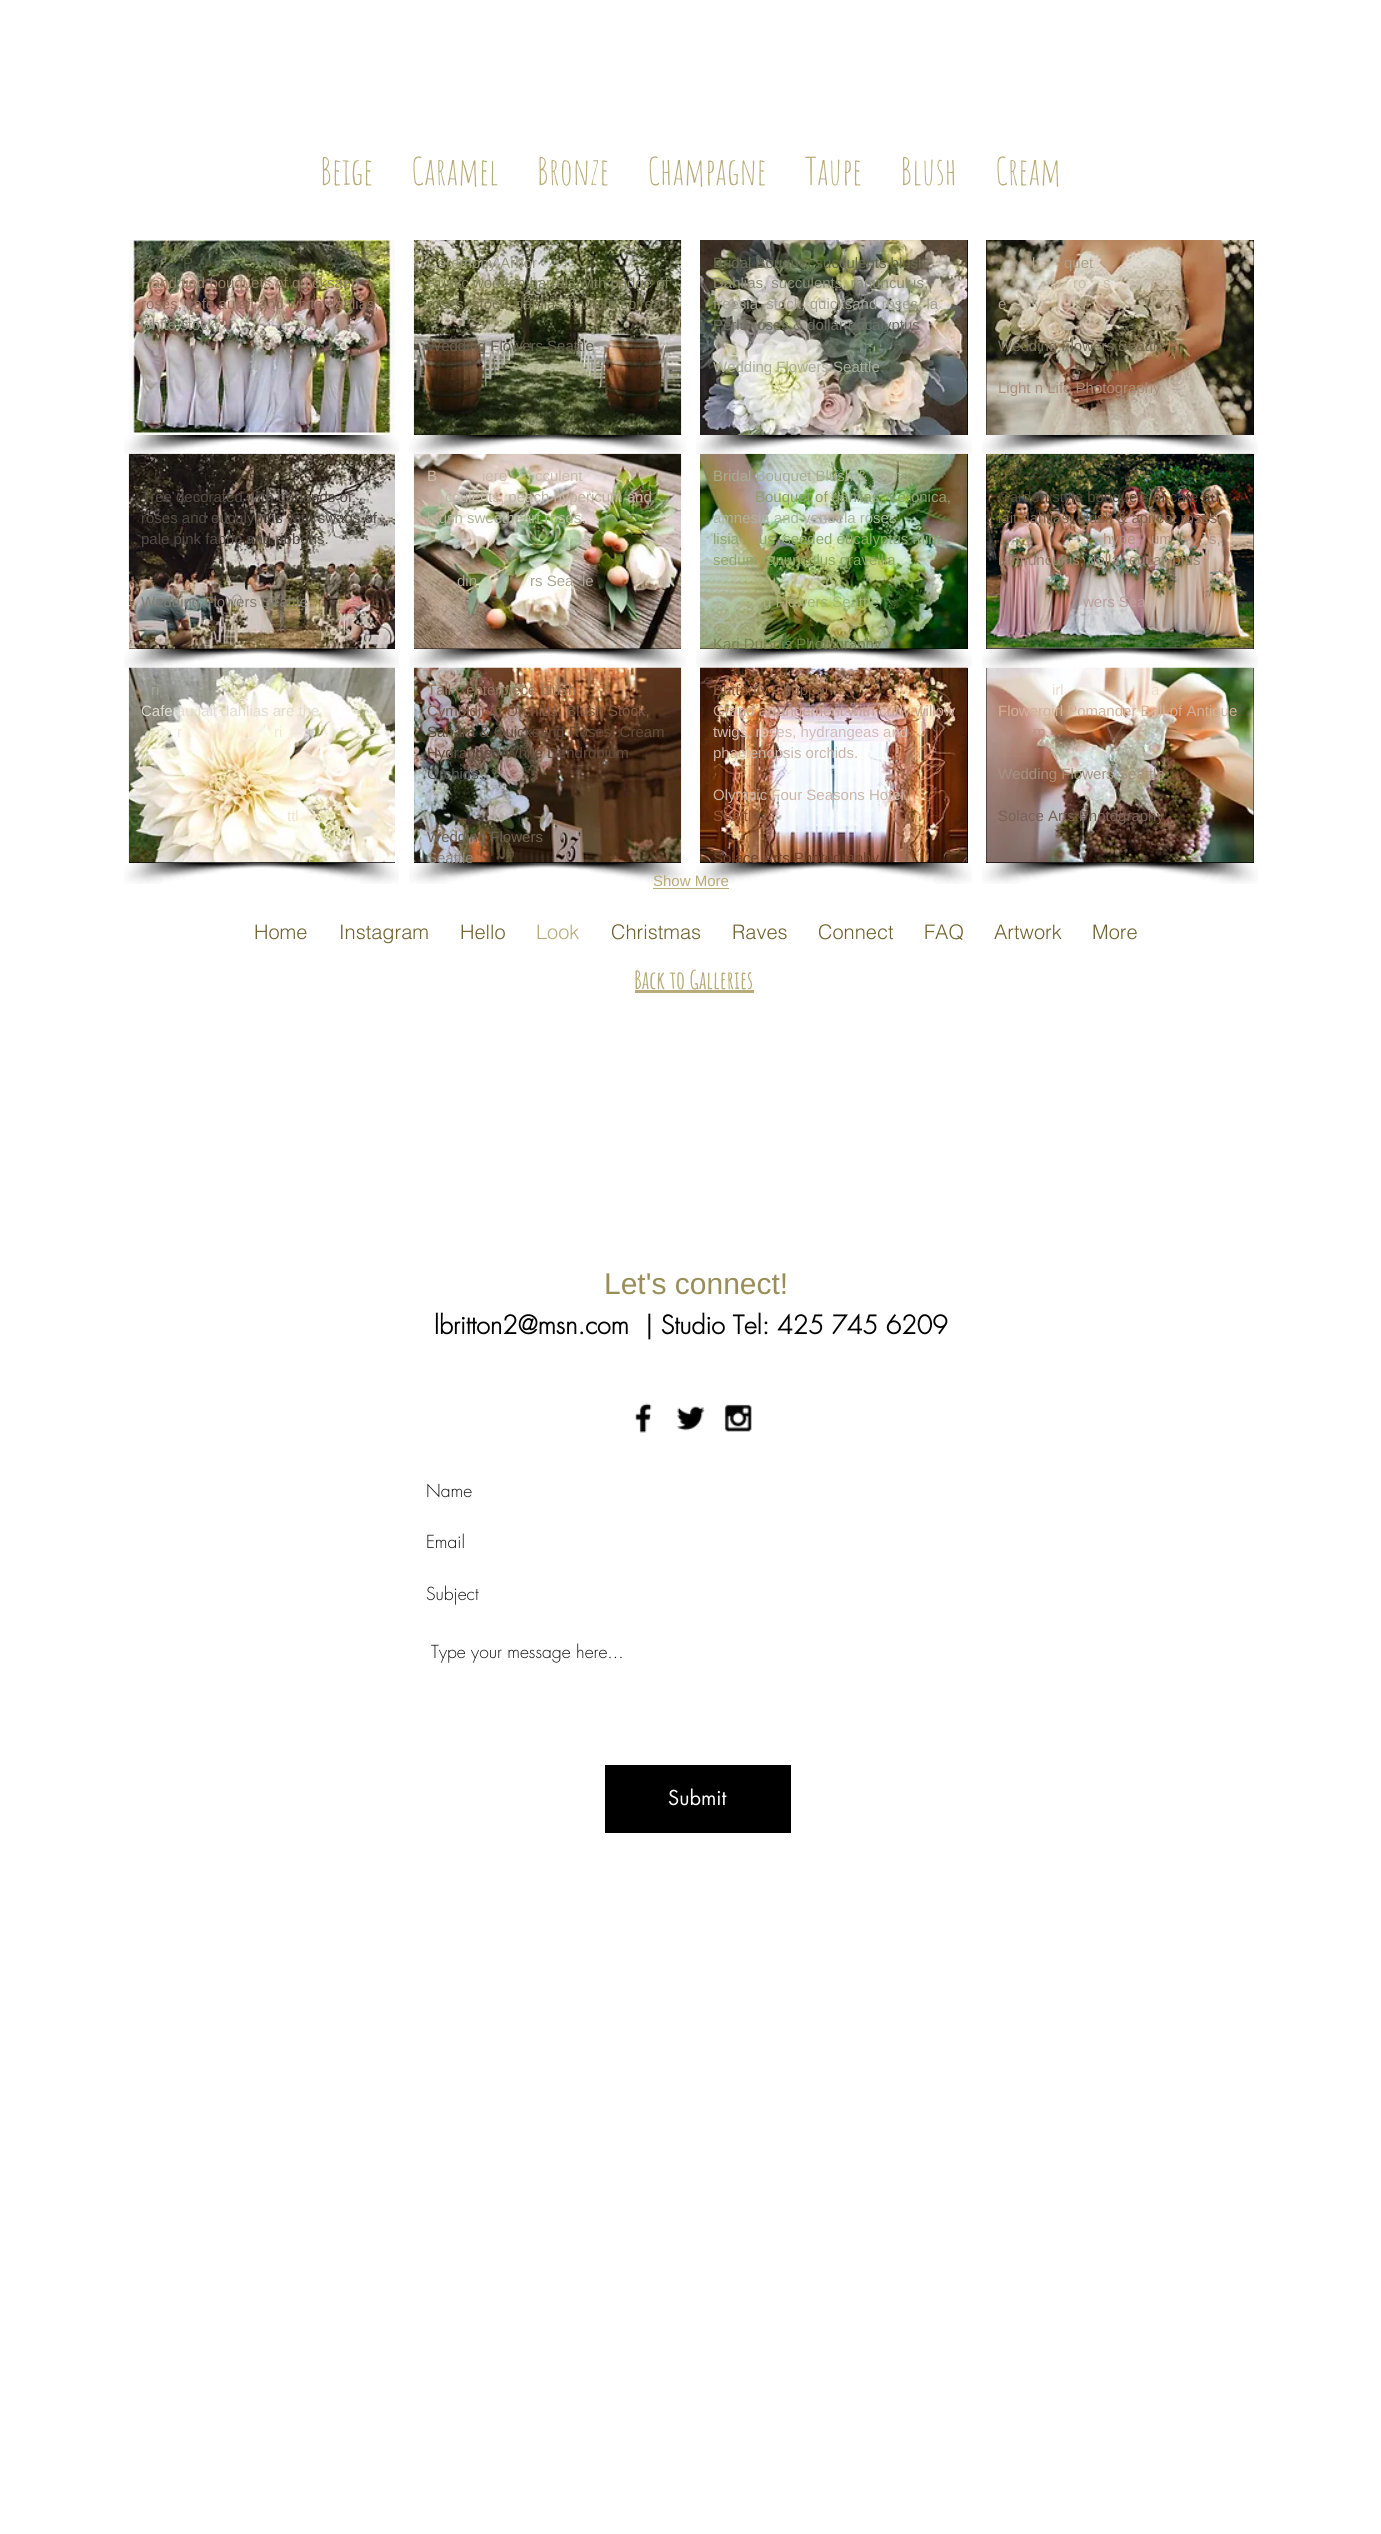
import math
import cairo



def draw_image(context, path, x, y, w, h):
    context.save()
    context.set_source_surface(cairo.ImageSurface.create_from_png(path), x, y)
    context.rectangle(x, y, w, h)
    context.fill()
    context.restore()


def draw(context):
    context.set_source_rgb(1, 1, 1)
    context.paint()
    draw_image(context, "images/1.png", 129, 240, 266, 195)
    draw_image(context, "images/2.png", 124, 435, 188, 19)
    draw_image(context, "images/3.png", 234, 435, 165, 19)
    draw_image(context, "images/4.png", 413, 240, 269, 195)
    draw_image(context, "images/5.png", 409, 435, 189, 19)
    draw_image(context, "images/6.png", 520, 435, 166, 19)
    context.set_source_rgb(3 / 255, 3 / 255, 3 / 255)
    context.rectangle(967, 240, 1, 195)
    context.fill()
    draw_image(context, "images/7.png", 700, 240, 268, 195)
    draw_image(context, "images/8.png", 696, 435, 188, 19)
    draw_image(context, "images/9.png", 806, 435, 166, 19)
    context.rectangle(986, 240, 268, 195)
    context.fill()
    draw_image(context, "images/10.png", 986, 240, 268, 195)
    draw_image(context, "images/11.png", 982, 435, 189, 19)
    draw_image(context, "images/12.png", 1092, 435, 166, 19)
    context.set_source_rgba(0, 0, 0, 0.99)
    context.rectangle(129, 648, 266, 1)
    context.fill()
    draw_image(context, "images/13.png", 128, 453, 267, 196)
    draw_image(context, "images/14.png", 124, 649, 186, 19)
    draw_image(context, "images/15.png", 234, 648, 165, 20)
    context.rectangle(414, 648, 267, 1)
    context.fill()
    draw_image(context, "images/16.png", 413, 453, 269, 196)
    draw_image(context, "images/14.png", 409, 649, 186, 19)
    draw_image(context, "images/17.png", 520, 648, 166, 20)
    context.rectangle(700, 454, 268, 195)
    context.fill()
    draw_image(context, "images/18.png", 700, 453, 268, 196)
    draw_image(context, "images/19.png", 696, 649, 186, 19)
    context.rectangle(986, 454, 268, 195)
    context.fill()
    draw_image(context, "images/21.png", 986, 453, 268, 196)
    draw_image(context, "images/22.png", 982, 649, 186, 19)
    draw_image(context, "images/23.png", 1093, 648, 165, 20)
    context.rectangle(129, 862, 266, 1)
    context.fill()
    draw_image(context, "images/24.png", 128, 667, 267, 196)
    draw_image(context, "images/25.png", 124, 863, 186, 21)
    draw_image(context, "images/26.png", 235, 862, 164, 22)
    context.rectangle(414, 862, 267, 1)
    context.fill()
    draw_image(context, "images/27.png", 413, 667, 269, 196)
    draw_image(context, "images/25.png", 409, 863, 186, 21)
    draw_image(context, "images/28.png", 520, 862, 166, 22)
    context.rectangle(700, 668, 268, 195)
    context.fill()
    draw_image(context, "images/30.png", 696, 863, 185, 21)
    context.rectangle(986, 668, 268, 195)
    context.fill()
    draw_image(context, "images/32.png", 986, 667, 268, 196)
    draw_image(context, "images/33.png", 982, 863, 185, 21)
    draw_image(context, "images/34.png", 1093, 862, 165, 22)
    context.set_source_rgb(183 / 255, 171 / 255, 121 / 255)
    context.rectangle(653, 888, 76, 1)
    context.fill()
    context.rectangle(635, 990, 119, 3)
    context.fill()
    draw_image(context, "images/35.png", 635, 1403, 17, 30)
    draw_image(context, "images/36.png", 677, 1406, 28, 25)
    draw_image(context, "images/37.png", 724, 1404, 28, 28)
    context.set_source_rgb(0, 0, 0)
    context.rectangle(605, 1765, 186, 68)
    context.fill()
    context.select_font_face("Amatic SC")
    context.set_font_size(37.5)
    context.set_source_rgb(183 / 255, 171 / 255, 121 / 255)
    context.move_to(320, 185)
    context.show_text("Beige      Caramel      Bronze      Champagne      Taupe      Blush      Cream")
    context.select_font_face("Liberation Sans")
    context.set_font_size(15)
    context.set_source_rgb(81 / 255, 90 / 255, 59 / 255)
    context.move_to(183, 268)
    context.show_text("P")
    context.set_source_rgb(146 / 255, 128 / 255, 97 / 255)
    context.move_to(141, 288)
    context.show_text("Hand tied bouquets of quicksand")
    context.set_source_rgb(147 / 255, 114 / 255, 97 / 255)
    context.move_to(141, 309)
    context.show_text("roses, cafe aulait and white dahlias,")
    context.set_source_rgb(143 / 255, 140 / 255, 125 / 255)
    context.move_to(141, 330)
    context.show_text("white stock.")
    context.set_source_rgb(151 / 255, 151 / 255, 127 / 255)
    context.move_to(427, 268)
    context.show_text("Ceremony Arbor")
    context.set_source_rgb(128 / 255, 130 / 255, 94 / 255)
    context.move_to(427, 288)
    context.show_text("Rustic wooden barrels with bridge of")
    context.set_source_rgb(118 / 255, 117 / 255, 83 / 255)
    context.move_to(427, 309)
    context.show_text("roses, stock, dahlias & white spirea.")
    context.set_source_rgb(101 / 255, 95 / 255, 78 / 255)
    context.move_to(427, 351)
    context.show_text("Wedding Flowers Seattle")
    context.set_source_rgb(103 / 255, 107 / 255, 77 / 255)
    context.move_to(713, 268)
    context.show_text("Bridal Bouquet succulents blush")
    context.set_source_rgb(139 / 255, 140 / 255, 118 / 255)
    context.move_to(713, 288)
    context.show_text("Dahlias, succulents, ranunculus,")
    context.set_source_rgb(161 / 255, 160 / 255, 146 / 255)
    context.move_to(713, 309)
    context.show_text("freesia, stock, quicksand roses, la")
    context.set_source_rgb(110 / 255, 112 / 255, 101 / 255)
    context.move_to(713, 330)
    context.show_text("Perla roses & dollar eucalyptus")
    context.set_source_rgb(170 / 255, 174 / 255, 155 / 255)
    context.move_to(713, 372)
    context.show_text("Wedding Flowers Seattle")
    context.set_source_rgb(175 / 255, 159 / 255, 136 / 255)
    context.move_to(1032, 268)
    context.show_text("l")
    context.move_to(1064, 268)
    context.show_text("quet")
    context.set_source_rgb(198 / 255, 188 / 255, 170 / 255)
    context.move_to(1073, 288)
    context.show_text("ro")
    context.move_to(1103, 288)
    context.show_text("s")
    context.set_source_rgb(175 / 255, 159 / 255, 136 / 255)
    context.move_to(998, 309)
    context.show_text("e")
    context.move_to(1034, 309)
    context.show_text("y")
    context.set_source_rgb(117 / 255, 109 / 255, 85 / 255)
    context.move_to(998, 351)
    context.show_text("Wedding Flowers Seattle")
    context.set_source_rgb(171 / 255, 142 / 255, 122 / 255)
    context.move_to(998, 393)
    context.show_text("Light n Life Photography")
    context.set_source_rgb(84 / 255, 76 / 255, 69 / 255)
    context.move_to(141, 502)
    context.show_text("Tree decorated with garlands of")
    context.move_to(141, 523)
    context.show_text("roses and eucalyptus with swags of")
    context.move_to(141, 544)
    context.show_text("pale pink fabric and ribbons.")
    context.set_source_rgb(129 / 255, 126 / 255, 114 / 255)
    context.move_to(141, 607)
    context.show_text("Wedding Flowers Seattle")
    context.set_source_rgb(198 / 255, 188 / 255, 170 / 255)
    context.move_to(427, 481)
    context.show_text("B")
    context.move_to(482, 481)
    context.show_text("iere")
    context.move_to(535, 481)
    context.show_text("cculent")
    context.set_source_rgb(190 / 255, 180 / 255, 163 / 255)
    context.move_to(445, 502)
    context.show_text("cculents, peach hypericum and")
    context.set_source_rgb(172 / 255, 182 / 255, 148 / 255)
    context.move_to(427, 523)
    context.show_text("blush sweetheart roses.")
    context.set_source_rgb(171 / 255, 165 / 255, 146 / 255)
    context.move_to(457, 586)
    context.show_text("din")
    context.move_to(530, 586)
    context.show_text("rs Sea")
    context.move_to(582, 586)
    context.show_text("le")
    context.set_source_rgb(167 / 255, 174 / 255, 148 / 255)
    context.move_to(713, 481)
    context.show_text("Bridal Bouquet Blush & Whit")
    context.set_source_rgb(143 / 255, 159 / 255, 111 / 255)
    context.move_to(755, 502)
    context.show_text("Bouquet of dahlias, Veronica,")
    context.set_source_rgb(172 / 255, 182 / 255, 158 / 255)
    context.move_to(713, 523)
    context.show_text("amnesia and vendela roses,")
    context.set_source_rgb(140 / 255, 167 / 255, 112 / 255)
    context.move_to(713, 544)
    context.show_text("lisia")
    context.move_to(759, 544)
    context.show_text("us, seeded eucalyptus mint,")
    context.set_source_rgb(142 / 255, 168 / 255, 101 / 255)
    context.move_to(713, 565)
    context.show_text("sedum ranunculus gravellia.")
    context.set_source_rgb(162 / 255, 180 / 255, 118 / 255)
    context.move_to(763, 607)
    context.show_text("g Flowers Seattle")
    context.save()
    context.rectangle(713, 488, 242, 161)
    context.clip()
    context.set_source_rgb(117 / 255, 132 / 255, 81 / 255)
    context.move_to(713, 649)
    context.show_text("Kari DuBois Photography")
    context.restore()
    draw_image(context, "images/20.png", 807, 648, 165, 20)
    context.set_source_rgb(88 / 255, 75 / 255, 57 / 255)
    context.move_to(998, 502)
    context.show_text("Garden style bouquets of cafe au")
    context.set_source_rgb(131 / 255, 102 / 255, 81 / 255)
    context.move_to(998, 523)
    context.show_text("lait dahlias, blush & apricot roses,")
    context.set_source_rgb(177 / 255, 147 / 255, 128 / 255)
    context.move_to(1103, 544)
    context.show_text("hype")
    context.move_to(1151, 544)
    context.show_text("um,")
    context.move_to(1209, 544)
    context.show_text("s,")
    context.set_source_rgb(152 / 255, 133 / 255, 111 / 255)
    context.move_to(998, 565)
    context.show_text("rannunculus, dollar eucalyptus")
    context.set_source_rgb(188 / 255, 159 / 255, 156 / 255)
    context.move_to(1083, 607)
    context.show_text("wers Sea")
    context.set_source_rgb(164 / 255, 164 / 255, 152 / 255)
    context.move_to(151, 695)
    context.show_text("ri")
    context.set_source_rgb(225 / 255, 221 / 255, 210 / 255)
    context.move_to(141, 716)
    context.show_text("Cafe au lait dahlias are the")
    context.set_source_rgb(238 / 255, 233 / 255, 212 / 255)
    context.move_to(177, 737)
    context.show_text("r")
    context.move_to(274, 737)
    context.show_text("ri")
    context.set_source_rgb(245 / 255, 232 / 255, 206 / 255)
    context.move_to(222, 779)
    context.show_text(",")
    context.set_source_rgb(238 / 255, 229 / 255, 206 / 255)
    context.move_to(287, 821)
    context.show_text("ttl")
    context.set_source_rgb(149 / 255, 117 / 255, 91 / 255)
    context.move_to(427, 695)
    context.show_text("Tall Centerpiece blush")
    context.set_source_rgb(127 / 255, 91 / 255, 71 / 255)
    context.move_to(427, 716)
    context.show_text("Cymbidium Orchids, Blush Stock,")
    context.set_source_rgb(99 / 255, 76 / 255, 59 / 255)
    context.move_to(427, 737)
    context.show_text("Sahara & Quicksand Roses, Cream")
    context.move_to(427, 758)
    context.show_text("Hydrangea White Dendrobium")
    context.set_source_rgb(84 / 255, 88 / 255, 85 / 255)
    context.move_to(427, 779)
    context.show_text("Orchids.")
    context.set_source_rgb(109 / 255, 98 / 255, 84 / 255)
    context.move_to(427, 842)
    context.show_text("Wedding Flowers")
    context.save()
    context.rectangle(426, 701, 243, 162)
    context.clip()
    context.set_source_rgb(140 / 255, 133 / 255, 128 / 255)
    context.move_to(427, 863)
    context.show_text("Seattle")
    context.restore()
    draw_image(context, "images/29.png", 700, 667, 268, 196)
    context.set_source_rgb(134 / 255, 91 / 255, 62 / 255)
    context.move_to(713, 695)
    context.show_text("Butterfly Chuppah,")
    context.set_source_rgb(200 / 255, 164 / 255, 149 / 255)
    context.move_to(713, 716)
    context.show_text("Grand arrangement with curly willow")
    context.set_source_rgb(211 / 255, 187 / 255, 182 / 255)
    context.move_to(713, 737)
    context.show_text("twigs, roses, hydrangeas and")
    context.set_source_rgb(203 / 255, 181 / 255, 166 / 255)
    context.move_to(713, 758)
    context.show_text("phaelenopsis orchids.")
    context.move_to(713, 800)
    context.show_text("Olympic Four Seasons Hotel,")
    context.set_source_rgb(149 / 255, 88 / 255, 53 / 255)
    context.move_to(713, 821)
    context.show_text("Seattle")
    context.save()
    context.rectangle(713, 701, 242, 162)
    context.clip()
    context.set_source_rgb(115 / 255, 67 / 255, 44 / 255)
    context.move_to(713, 863)
    context.show_text("Solace Arts Photography")
    context.restore()
    draw_image(context, "images/31.png", 805, 862, 167, 22)
    context.set_source_rgb(234 / 255, 220 / 255, 207 / 255)
    context.move_to(1052, 695)
    context.show_text("irl")
    context.move_to(1151, 695)
    context.show_text("a")
    context.set_source_rgb(212 / 255, 178 / 255, 153 / 255)
    context.move_to(998, 716)
    context.show_text("Flowergirl Pomander Ball of Antique")
    context.set_source_rgb(188 / 255, 147 / 255, 133 / 255)
    context.move_to(1033, 737)
    context.show_text("m.")
    context.set_source_rgb(166 / 255, 145 / 255, 128 / 255)
    context.move_to(998, 779)
    context.show_text("Wedding Flowers Seattle")
    context.set_source_rgb(120 / 255, 98 / 255, 89 / 255)
    context.move_to(998, 821)
    context.show_text("Solace Arts Photography")
    context.set_source_rgb(183 / 255, 171 / 255, 121 / 255)
    context.move_to(653, 886)
    context.show_text("Show More")
    context.select_font_face("helvetica Light")
    context.set_font_size(20)
    context.set_source_rgb(112 / 255, 98 / 255, 48 / 255)
    context.move_to(254, 939)
    context.show_text("Home")
    context.move_to(339, 939)
    context.show_text("Instagram")
    context.move_to(460, 939)
    context.show_text("Hello")
    context.set_source_rgb(183 / 255, 171 / 255, 121 / 255)
    context.move_to(536, 939)
    context.show_text("Look")
    context.set_source_rgb(112 / 255, 98 / 255, 48 / 255)
    context.move_to(611, 939)
    context.show_text("Christmas")
    context.move_to(732, 939)
    context.show_text("Raves")
    context.move_to(818, 939)
    context.show_text("Connect")
    context.move_to(924, 939)
    context.show_text("FAQ")
    context.move_to(994, 939)
    context.show_text("Artwork")
    context.move_to(1092, 939)
    context.show_text("More")
    context.select_font_face("Amatic SC", cairo.FontSlant.NORMAL, cairo.FontWeight.BOLD)
    context.set_font_size(25)
    context.set_source_rgb(183 / 255, 171 / 255, 121 / 255)
    context.move_to(634, 989)
    context.show_text("Back to Galleries")
    context.select_font_face("Liberation Sans")
    context.set_font_size(30)
    context.set_source_rgb(153 / 255, 141 / 255, 88 / 255)
    context.move_to(604, 1294)
    context.show_text("Let's connect!")
    context.select_font_face("futura", cairo.FontSlant.NORMAL, cairo.FontWeight.BOLD)
    context.set_font_size(25)
    context.set_source_rgb(0, 0, 0)
    context.move_to(434, 1334)
    context.show_text("lbritton2@msn.com")
    context.move_to(645, 1334)
    context.show_text("| Studio Tel: 425 745 6209")
    context.select_font_face("futura Light")
    context.set_font_size(17.5)
    context.set_source_rgb(15 / 255, 15 / 255, 15 / 255)
    context.move_to(426, 1497)
    context.show_text("Name")
    context.move_to(426, 1548)
    context.show_text("Email")
    context.move_to(426, 1600)
    context.show_text("Subject")
    context.move_to(431, 1658)
    context.show_text("Type your message here...")
    context.select_font_face("futura")
    context.set_font_size(20)
    context.set_source_rgb(1, 1, 1)
    context.move_to(668, 1805)
    context.show_text("Submit")


surface = cairo.ImageSurface(cairo.Format.RGB24, 1381, 2534)
context = cairo.Context(surface)
options = cairo.FontOptions()
options.set_hint_metrics(cairo.HintMetrics.OFF)
options.set_hint_style(cairo.HintStyle.NONE)
context.set_font_options(options)
context.set_miter_limit(4)
draw(context)
surface.write_to_png("out.png")
